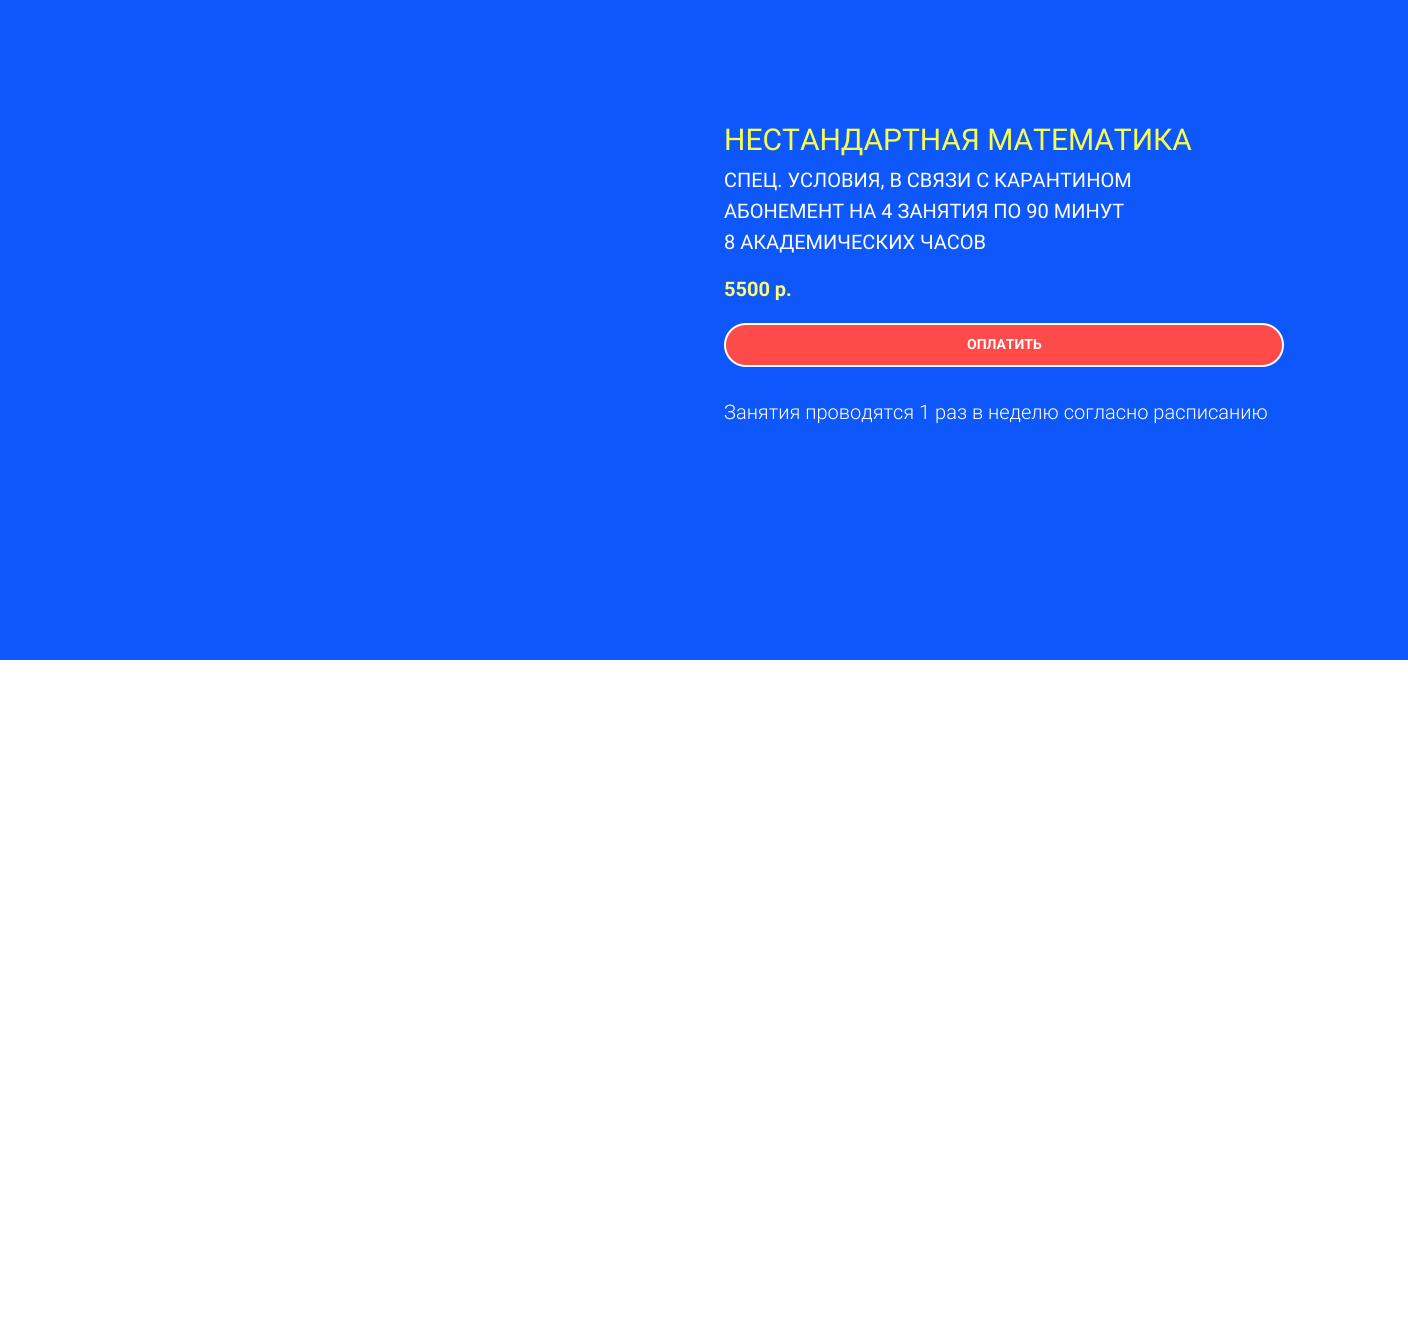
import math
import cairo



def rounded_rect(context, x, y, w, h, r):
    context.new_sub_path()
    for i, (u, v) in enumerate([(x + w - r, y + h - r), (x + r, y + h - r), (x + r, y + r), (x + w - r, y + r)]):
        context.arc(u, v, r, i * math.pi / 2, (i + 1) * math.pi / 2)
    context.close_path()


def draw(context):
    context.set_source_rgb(1, 1, 1)
    context.paint()
    context.set_source_rgb(13 / 255, 87 / 255, 251 / 255)
    context.rectangle(0, 0, 1408, 660)
    context.fill()
    context.set_source_rgb(1, 74 / 255, 74 / 255)
    rounded_rect(context, 725, 324, 558, 42, 21)
    context.fill_preserve()
    context.set_source_rgb(1, 1, 1)
    context.stroke()
    context.select_font_face("Roboto")
    context.set_font_size(30)
    context.set_source_rgb(246 / 255, 1, 79 / 255)
    context.move_to(724, 150)
    context.show_text("НЕСТАНДАРТНАЯ МАТЕМАТИКА")
    context.set_font_size(20)
    context.set_source_rgb(1, 1, 1)
    context.move_to(724, 187)
    context.show_text("СПЕЦ. УСЛОВИЯ, В СВЯЗИ С КАРАНТИНОМ")
    context.move_to(724, 218)
    context.show_text("АБОНЕМЕНТ НА 4 ЗАНЯТИЯ ПО 90 МИНУТ")
    context.move_to(724, 249)
    context.show_text("8 АКАДЕМИЧЕСКИХ ЧАСОВ")
    context.select_font_face("Roboto", cairo.FontSlant.NORMAL, cairo.FontWeight.BOLD)
    context.set_source_rgb(252 / 255, 252 / 255, 121 / 255)
    context.move_to(724, 296)
    context.show_text("5500 р.")
    context.set_font_size(14)
    context.set_source_rgb(1, 1, 1)
    context.move_to(967, 349)
    context.show_text("ОПЛАТИТЬ")
    context.select_font_face("Roboto Light")
    context.set_font_size(20)
    context.move_to(724, 419)
    context.show_text("Занятия проводятся 1 раз в неделю согласно расписанию")


surface = cairo.ImageSurface(cairo.Format.RGB24, 1408, 1326)
context = cairo.Context(surface)
options = cairo.FontOptions()
options.set_hint_metrics(cairo.HintMetrics.OFF)
options.set_hint_style(cairo.HintStyle.NONE)
context.set_font_options(options)
context.set_miter_limit(4)
draw(context)
surface.write_to_png("out.png")
